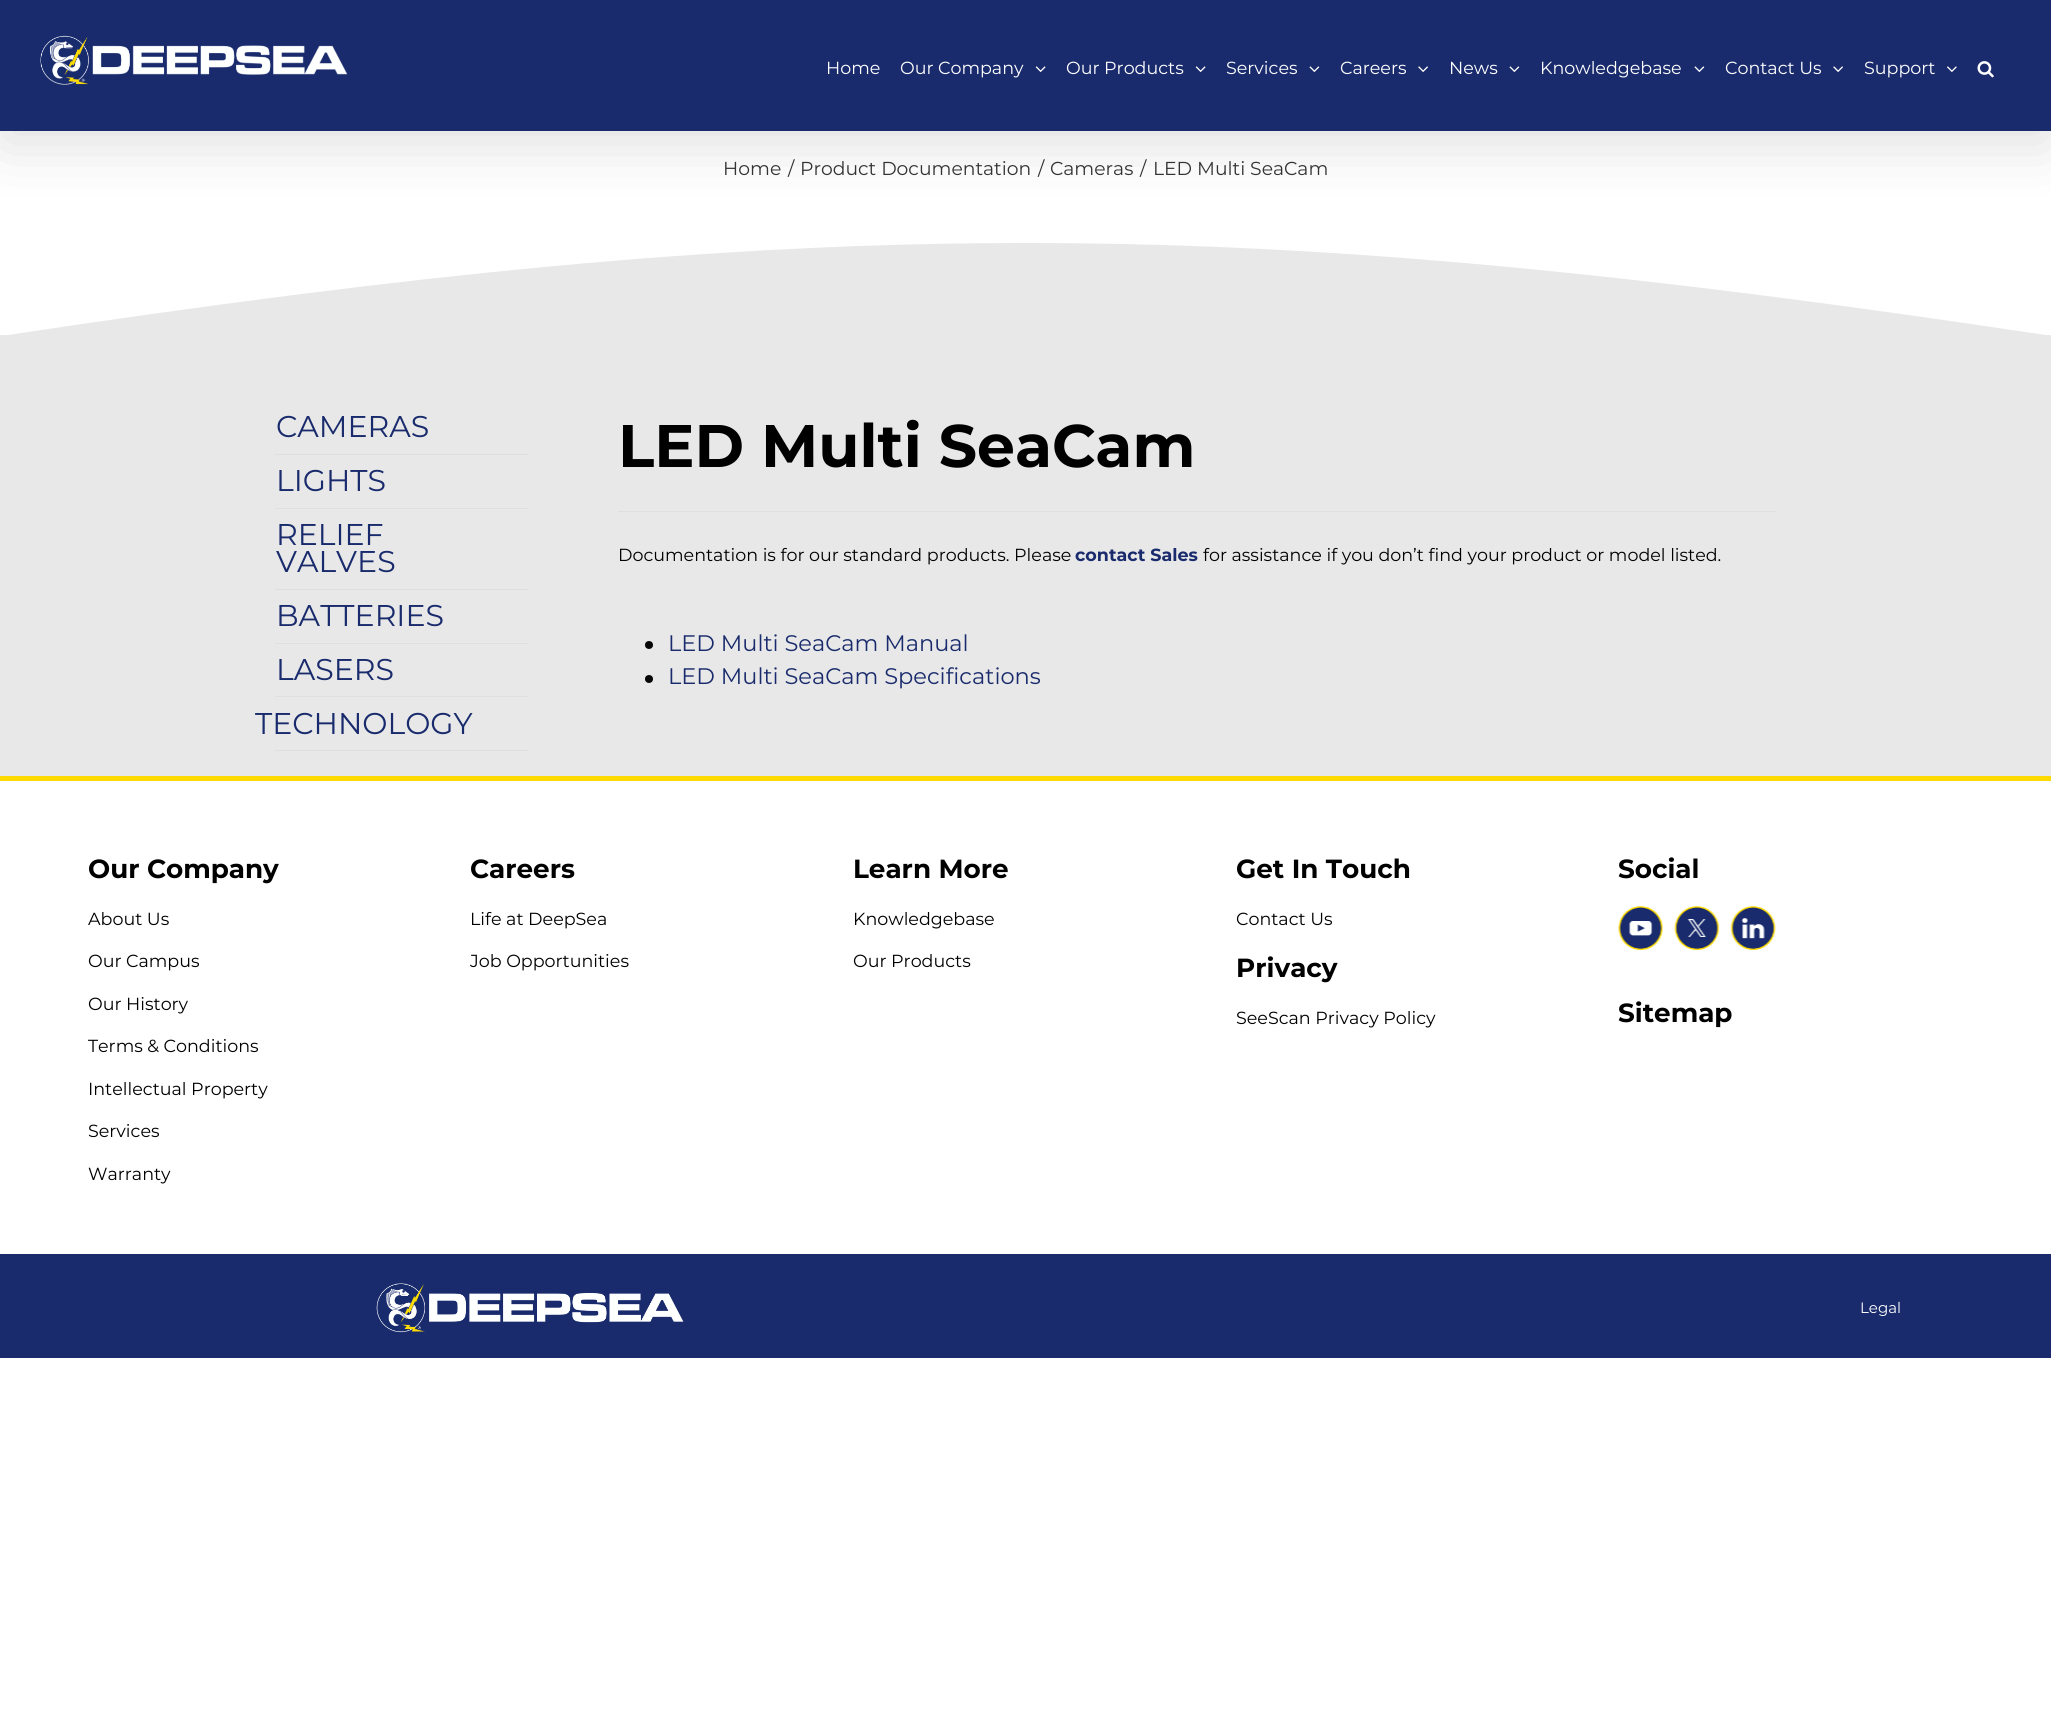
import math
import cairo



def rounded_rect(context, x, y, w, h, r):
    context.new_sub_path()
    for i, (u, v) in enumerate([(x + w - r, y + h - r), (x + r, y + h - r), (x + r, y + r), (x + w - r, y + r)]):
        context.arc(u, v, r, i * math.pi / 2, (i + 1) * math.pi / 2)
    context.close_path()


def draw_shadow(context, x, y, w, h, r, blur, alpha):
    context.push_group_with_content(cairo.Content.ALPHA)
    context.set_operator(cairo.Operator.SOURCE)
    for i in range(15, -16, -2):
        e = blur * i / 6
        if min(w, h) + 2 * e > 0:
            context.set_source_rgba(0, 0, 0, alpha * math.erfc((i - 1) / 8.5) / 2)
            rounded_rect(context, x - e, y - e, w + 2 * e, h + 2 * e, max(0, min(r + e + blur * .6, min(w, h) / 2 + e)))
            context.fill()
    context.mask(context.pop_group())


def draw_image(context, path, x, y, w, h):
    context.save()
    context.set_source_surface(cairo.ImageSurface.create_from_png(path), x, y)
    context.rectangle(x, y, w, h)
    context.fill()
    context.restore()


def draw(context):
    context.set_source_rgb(1, 1, 1)
    context.paint()
    context.set_source_rgb(0, 0, 0)
    draw_shadow(context, 3, 15, 2046, 126, 0, 31, 0.14)
    context.set_source_rgb(25 / 255, 43 / 255, 108 / 255)
    context.rectangle(0, 0, 2051, 131)
    context.fill()
    draw_image(context, "images/1.png", 40, 35, 308, 50)
    draw_image(context, "images/2.png", 1035, 66, 11, 6)
    draw_image(context, "images/2.png", 1195, 66, 11, 6)
    draw_image(context, "images/3.png", 1309, 66, 11, 6)
    draw_image(context, "images/4.png", 1418, 66, 10, 6)
    draw_image(context, "images/3.png", 1509, 66, 11, 6)
    draw_image(context, "images/3.png", 1694, 66, 11, 6)
    draw_image(context, "images/4.png", 1833, 66, 10, 6)
    draw_image(context, "images/5.png", 1947, 66, 10, 6)
    draw_image(context, "images/6.png", 1977, 61, 17, 17)
    context.set_source_rgb(232 / 255, 232 / 255, 232 / 255)
    context.rectangle(0, 335, 2051, 441)
    context.fill()
    context.new_path()
    context.move_to(1, 336)
    context.curve_to(821, 212, 1231, 212, 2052, 336)
    context.close_path()
    context.fill()
    context.set_source_rgb(224 / 255, 222 / 255, 222 / 255)
    context.rectangle(275, 454, 253, 1)
    context.fill()
    context.rectangle(275, 508, 253, 1)
    context.fill()
    context.rectangle(275, 589, 253, 1)
    context.fill()
    context.rectangle(275, 643, 253, 1)
    context.fill()
    context.rectangle(275, 696, 253, 1)
    context.fill()
    context.rectangle(275, 750, 253, 1)
    context.fill()
    context.rectangle(618, 511, 1158, 1)
    context.fill()
    context.set_source_rgb(7 / 255, 7 / 255, 7 / 255)
    context.arc(649, 645, 4, 0, 2 * math.pi)
    context.fill()
    context.arc(649, 679, 4, 0, 2 * math.pi)
    context.fill()
    context.set_source_rgb(1, 218 / 255, 0)
    context.rectangle(0, 776, 2051, 5)
    context.fill()
    draw_image(context, "images/7.png", 1618, 906, 45, 44)
    draw_image(context, "images/8.png", 1674, 906, 46, 44)
    draw_image(context, "images/9.png", 1730, 906, 46, 44)
    context.set_source_rgb(25 / 255, 43 / 255, 108 / 255)
    context.rectangle(0, 1254, 2051, 104)
    context.fill()
    draw_image(context, "images/10.png", 376, 1283, 308, 50)
    context.select_font_face("Montserrat")
    context.set_font_size(17.5)
    context.set_source_rgb(1, 1, 1)
    context.move_to(826, 74)
    context.show_text("Home")
    context.move_to(900, 74)
    context.show_text("Our Company")
    context.move_to(1066, 74)
    context.show_text("Our Products")
    context.move_to(1226, 74)
    context.show_text("Services")
    context.move_to(1340, 74)
    context.show_text("Careers")
    context.move_to(1449, 74)
    context.show_text("News")
    context.move_to(1540, 74)
    context.show_text("Knowledgebase")
    context.move_to(1725, 74)
    context.show_text("Contact Us")
    context.move_to(1864, 74)
    context.show_text("Support")
    context.set_font_size(18.75)
    context.set_source_rgb(51 / 255, 51 / 255, 51 / 255)
    context.move_to(723, 175)
    context.show_text("Home")
    context.move_to(788, 175)
    context.show_text("/")
    context.move_to(800, 175)
    context.show_text("Product Documentation")
    context.move_to(1038, 175)
    context.show_text("/")
    context.move_to(1050, 175)
    context.show_text("Cameras")
    context.move_to(1140, 175)
    context.show_text("/")
    context.move_to(1153, 175)
    context.show_text("LED Multi SeaCam")
    context.set_font_size(30)
    context.set_source_rgb(25 / 255, 43 / 255, 108 / 255)
    context.move_to(276, 437)
    context.show_text("CAMERAS")
    context.move_to(276, 491)
    context.show_text("LIGHTS")
    context.move_to(276, 545)
    context.show_text("RELIEF")
    context.move_to(276, 572)
    context.show_text("VALVES")
    context.move_to(276, 626)
    context.show_text("BATTERIES")
    context.move_to(276, 680)
    context.show_text("LASERS")
    context.move_to(255, 734)
    context.show_text("TECHNOLOGY")
    context.select_font_face("Montserrat", cairo.FontSlant.NORMAL, cairo.FontWeight.BOLD)
    context.set_font_size(60)
    context.set_source_rgb(0, 0, 0)
    context.move_to(618, 467)
    context.show_text("LED Multi SeaCam")
    context.select_font_face("Montserrat")
    context.set_font_size(17.5)
    context.move_to(618, 561)
    context.show_text("Documentation is for our standard products. Please")
    context.select_font_face("Montserrat", cairo.FontSlant.NORMAL, cairo.FontWeight.BOLD)
    context.set_source_rgb(25 / 255, 43 / 255, 108 / 255)
    context.move_to(1075, 561)
    context.show_text("contact Sales")
    context.select_font_face("Montserrat")
    context.set_source_rgb(0, 0, 0)
    context.move_to(1203, 561)
    context.show_text("for assistance if you don’t find your product or model listed.")
    context.set_font_size(22.5)
    context.set_source_rgb(25 / 255, 43 / 255, 108 / 255)
    context.move_to(668, 651)
    context.show_text("LED Multi SeaCam Manual")
    context.move_to(668, 684)
    context.show_text("LED Multi SeaCam Specifications")
    context.select_font_face("Montserrat", cairo.FontSlant.NORMAL, cairo.FontWeight.BOLD)
    context.set_font_size(26.25)
    context.set_source_rgb(0, 0, 0)
    context.move_to(88, 878)
    context.show_text("Our Company")
    context.select_font_face("Montserrat")
    context.set_font_size(17.5)
    context.move_to(88, 925)
    context.show_text("About Us")
    context.move_to(88, 967)
    context.show_text("Our Campus")
    context.move_to(88, 1010)
    context.show_text("Our History")
    context.move_to(88, 1052)
    context.show_text("Terms & Conditions")
    context.move_to(88, 1095)
    context.show_text("Intellectual Property")
    context.move_to(88, 1137)
    context.show_text("Services")
    context.move_to(88, 1180)
    context.show_text("Warranty")
    context.select_font_face("Montserrat", cairo.FontSlant.NORMAL, cairo.FontWeight.BOLD)
    context.set_font_size(26.25)
    context.move_to(470, 878)
    context.show_text("Careers")
    context.select_font_face("Montserrat")
    context.set_font_size(17.5)
    context.move_to(470, 925)
    context.show_text("Life at DeepSea")
    context.move_to(470, 967)
    context.show_text("Job Opportunities")
    context.select_font_face("Montserrat", cairo.FontSlant.NORMAL, cairo.FontWeight.BOLD)
    context.set_font_size(26.25)
    context.move_to(853, 878)
    context.show_text("Learn More")
    context.select_font_face("Montserrat")
    context.set_font_size(17.5)
    context.move_to(853, 925)
    context.show_text("Knowledgebase")
    context.move_to(853, 967)
    context.show_text("Our Products")
    context.select_font_face("Montserrat", cairo.FontSlant.NORMAL, cairo.FontWeight.BOLD)
    context.set_font_size(26.25)
    context.move_to(1236, 878)
    context.show_text("Get In Touch")
    context.select_font_face("Montserrat")
    context.set_font_size(17.5)
    context.move_to(1236, 925)
    context.show_text("Contact Us")
    context.select_font_face("Montserrat", cairo.FontSlant.NORMAL, cairo.FontWeight.BOLD)
    context.set_font_size(26.25)
    context.move_to(1236, 977)
    context.show_text("Privacy")
    context.select_font_face("Montserrat")
    context.set_font_size(17.5)
    context.move_to(1236, 1024)
    context.show_text("SeeScan Privacy Policy")
    context.select_font_face("Montserrat", cairo.FontSlant.NORMAL, cairo.FontWeight.BOLD)
    context.set_font_size(26.25)
    context.move_to(1618, 878)
    context.show_text("Social")
    context.move_to(1618, 1022)
    context.show_text("Sitemap")
    context.select_font_face("Montserrat")
    context.set_font_size(15)
    context.set_source_rgb(1, 1, 1)
    context.move_to(1860, 1313)
    context.show_text("Legal")


surface = cairo.ImageSurface(cairo.Format.RGB24, 2051, 1731)
context = cairo.Context(surface)
options = cairo.FontOptions()
options.set_hint_metrics(cairo.HintMetrics.OFF)
options.set_hint_style(cairo.HintStyle.NONE)
context.set_font_options(options)
context.set_miter_limit(4)
draw(context)
surface.write_to_png("out.png")
